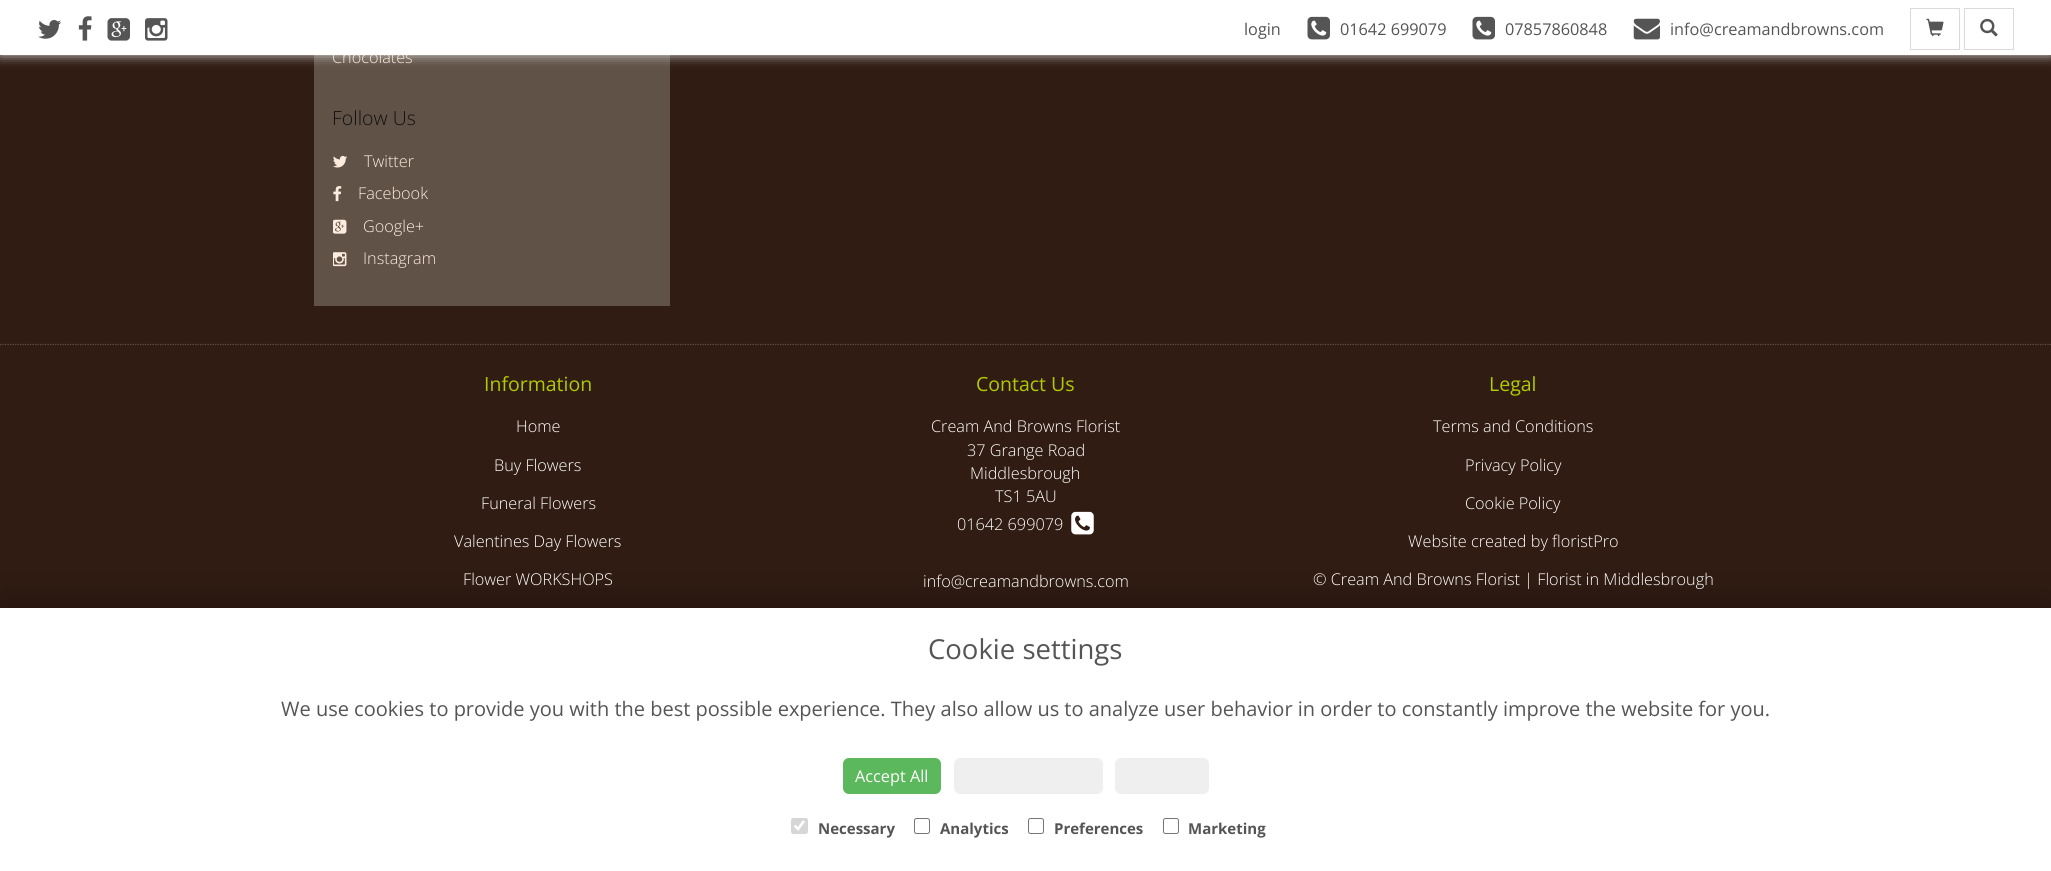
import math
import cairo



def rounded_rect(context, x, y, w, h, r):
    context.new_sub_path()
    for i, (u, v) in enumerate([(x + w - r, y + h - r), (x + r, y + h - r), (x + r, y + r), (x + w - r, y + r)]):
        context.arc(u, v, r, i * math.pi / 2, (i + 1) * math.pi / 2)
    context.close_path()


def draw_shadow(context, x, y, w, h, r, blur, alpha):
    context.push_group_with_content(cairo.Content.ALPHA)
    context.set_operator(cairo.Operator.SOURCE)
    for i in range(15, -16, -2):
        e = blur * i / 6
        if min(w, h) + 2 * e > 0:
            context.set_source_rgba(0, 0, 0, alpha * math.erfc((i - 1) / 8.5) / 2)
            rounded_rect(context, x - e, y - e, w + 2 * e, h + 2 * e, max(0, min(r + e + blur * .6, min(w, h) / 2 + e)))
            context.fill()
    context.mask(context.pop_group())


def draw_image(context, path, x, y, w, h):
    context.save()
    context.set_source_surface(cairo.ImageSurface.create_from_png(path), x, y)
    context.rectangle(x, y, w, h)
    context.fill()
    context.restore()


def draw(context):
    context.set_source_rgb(48 / 255, 28 / 255, 19 / 255)
    context.paint()
    context.set_source_rgb(96 / 255, 82 / 255, 71 / 255)
    context.rectangle(314, 55, 356, 251)
    context.fill()
    context.set_source_rgb(221 / 255, 221 / 255, 221 / 255)
    draw_shadow(context, 0, 0, 2051, 55, 0, 6, 1)
    draw_image(context, "images/9.png", 333, 155, 14, 13)
    draw_image(context, "images/10.png", 333, 186, 9, 16)
    draw_image(context, "images/11.png", 333, 219, 14, 15)
    draw_image(context, "images/12.png", 333, 252, 14, 15)
    context.new_path()
    context.move_to(0, 344.5)
    context.line_to(2051, 344.5)
    context.set_source_rgb(96 / 255, 82 / 255, 71 / 255)
    context.set_line_width(1.2)
    context.set_dash([1.25, 1.25])
    context.stroke()
    draw_image(context, "images/13.png", 1071, 511, 23, 24)
    context.set_source_rgb(0, 0, 0)
    draw_shadow(context, 0, 608, 2051, 263, 0, 25, 0.31)
    context.set_source_rgb(1, 1, 1)
    context.rectangle(0, 608, 2051, 263)
    context.fill()
    context.set_source_rgb(92 / 255, 184 / 255, 92 / 255)
    rounded_rect(context, 843, 758, 98, 36, 6)
    context.fill()
    context.set_source_rgb(239 / 255, 239 / 255, 239 / 255)
    rounded_rect(context, 954, 758, 149, 36, 6)
    context.fill()
    rounded_rect(context, 1115, 758, 94, 36, 6)
    context.fill()
    context.set_source_rgb(214 / 255, 214 / 255, 214 / 255)
    rounded_rect(context, 791, 818, 17, 16, 2.5)
    context.fill()
    context.new_path()
    context.move_to(794.5, 825.5)
    context.line_to(798, 829)
    context.line_to(804, 821)
    context.set_source_rgb(1, 1, 1)
    context.set_line_width(2.6)
    context.set_dash([])
    context.stroke()
    rounded_rect(context, 914.5, 818.5, 15, 15, 2)
    context.set_source_rgb(118 / 255, 118 / 255, 118 / 255)
    context.set_line_width(1)
    context.stroke()
    rounded_rect(context, 1028.5, 818.5, 15, 15, 2)
    context.stroke()
    rounded_rect(context, 1163.5, 818.5, 15, 15, 2)
    context.stroke()
    context.select_font_face("Open Sans Light")
    context.set_font_size(16.25)
    context.set_source_rgb(253 / 255, 236 / 255, 222 / 255)
    context.move_to(332, 63)
    context.show_text("Chocolates")
    context.set_source_rgb(1, 1, 1)
    context.rectangle(0, 0, 2051, 55)
    context.fill()
    context.rectangle(1964.5, 8.5, 49, 41)
    context.set_source_rgb(218 / 255, 218 / 255, 218 / 255)
    context.stroke()
    draw_image(context, "images/8.png", 1980, 18, 18, 19)
    context.rectangle(1910.5, 8.5, 49, 41)
    context.stroke()
    draw_image(context, "images/7.png", 1926, 18, 18, 19)
    draw_image(context, "images/6.png", 1633, 18, 27, 22)
    context.select_font_face("Open Sans")
    context.set_source_rgb(85 / 255, 85 / 255, 85 / 255)
    context.move_to(1670, 35)
    context.show_text("info@creamandbrowns.com")
    draw_image(context, "images/5.png", 1472, 16, 23, 24)
    context.move_to(1505, 35)
    context.show_text("07857860848")
    draw_image(context, "images/5.png", 1307, 16, 23, 24)
    context.move_to(1340, 35)
    context.show_text("01642 699079")
    context.move_to(1244, 35)
    context.show_text("login")
    draw_image(context, "images/4.png", 145, 18, 23, 23)
    draw_image(context, "images/3.png", 107, 18, 23, 23)
    draw_image(context, "images/2.png", 78, 16, 14, 25)
    draw_image(context, "images/1.png", 38, 20, 23, 19)
    context.select_font_face("Open Sans Light")
    context.set_font_size(19.5)
    context.set_source_rgb(17 / 255, 17 / 255, 17 / 255)
    context.move_to(332, 125)
    context.show_text("Follow Us")
    context.set_font_size(16.25)
    context.set_source_rgb(253 / 255, 236 / 255, 222 / 255)
    context.move_to(364, 167)
    context.show_text("Twitter")
    context.move_to(358, 199)
    context.show_text("Facebook")
    context.move_to(363, 232)
    context.show_text("Google+")
    context.move_to(363, 264)
    context.show_text("Instagram")
    context.select_font_face("Open Sans")
    context.set_font_size(19.5)
    context.set_source_rgb(176 / 255, 203 / 255, 0)
    context.move_to(484, 391)
    context.show_text("Information")
    context.select_font_face("Open Sans Light")
    context.set_font_size(16.25)
    context.set_source_rgb(1, 1, 1)
    context.move_to(516, 432)
    context.show_text("Home")
    context.move_to(494, 471)
    context.show_text("Buy Flowers")
    context.move_to(481, 509)
    context.show_text("Funeral Flowers")
    context.move_to(454, 547)
    context.show_text("Valentines Day Flowers")
    context.move_to(463, 585)
    context.show_text("Flower WORKSHOPS")
    context.select_font_face("Open Sans")
    context.set_font_size(19.5)
    context.set_source_rgb(176 / 255, 203 / 255, 0)
    context.move_to(976, 391)
    context.show_text("Contact Us")
    context.select_font_face("Open Sans Light")
    context.set_font_size(16.25)
    context.set_source_rgb(1, 1, 1)
    context.move_to(931, 432)
    context.show_text("Cream And Browns Florist")
    context.move_to(967, 456)
    context.show_text("37 Grange Road")
    context.move_to(970, 479)
    context.show_text("Middlesbrough")
    context.move_to(995, 502)
    context.show_text("TS1 5AU")
    context.move_to(957, 530)
    context.show_text("01642 699079")
    context.move_to(923, 587)
    context.show_text("info@creamandbrowns.com")
    context.select_font_face("Open Sans")
    context.set_font_size(19.5)
    context.set_source_rgb(176 / 255, 203 / 255, 0)
    context.move_to(1489, 391)
    context.show_text("Legal")
    context.select_font_face("Open Sans Light")
    context.set_font_size(16.25)
    context.set_source_rgb(1, 1, 1)
    context.move_to(1433, 432)
    context.show_text("Terms and Conditions")
    context.move_to(1465, 471)
    context.show_text("Privacy Policy")
    context.move_to(1465, 509)
    context.show_text("Cookie Policy")
    context.move_to(1408, 547)
    context.show_text("Website created by floristPro")
    context.move_to(1313, 585)
    context.show_text("© Cream And Browns Florist | Florist in Middlesbrough")
    context.select_font_face("Open Sans")
    context.set_font_size(27.5)
    context.set_source_rgb(85 / 255, 85 / 255, 85 / 255)
    context.move_to(928, 659)
    context.show_text("Cookie settings")
    context.set_font_size(20)
    context.move_to(281, 716)
    context.show_text("We use cookies to provide you with the best possible experience. They also allow us to analyze user behavior in order to constantly improve the website for you.")
    context.set_font_size(16.25)
    context.set_source_rgb(1, 1, 1)
    context.move_to(855, 782)
    context.show_text("Accept All")
    context.select_font_face("Open Sans", cairo.FontSlant.NORMAL, cairo.FontWeight.BOLD)
    context.set_font_size(15)
    context.set_source_rgb(85 / 255, 85 / 255, 85 / 255)
    context.move_to(818, 834)
    context.show_text("Necessary")
    context.move_to(940, 834)
    context.show_text("Analytics")
    context.move_to(1054, 834)
    context.show_text("Preferences")
    context.move_to(1188, 834)
    context.show_text("Marketing")


surface = cairo.ImageSurface(cairo.Format.RGB24, 2051, 871)
context = cairo.Context(surface)
options = cairo.FontOptions()
options.set_hint_metrics(cairo.HintMetrics.OFF)
options.set_hint_style(cairo.HintStyle.NONE)
context.set_font_options(options)
context.set_miter_limit(4)
draw(context)
surface.write_to_png("out.png")
